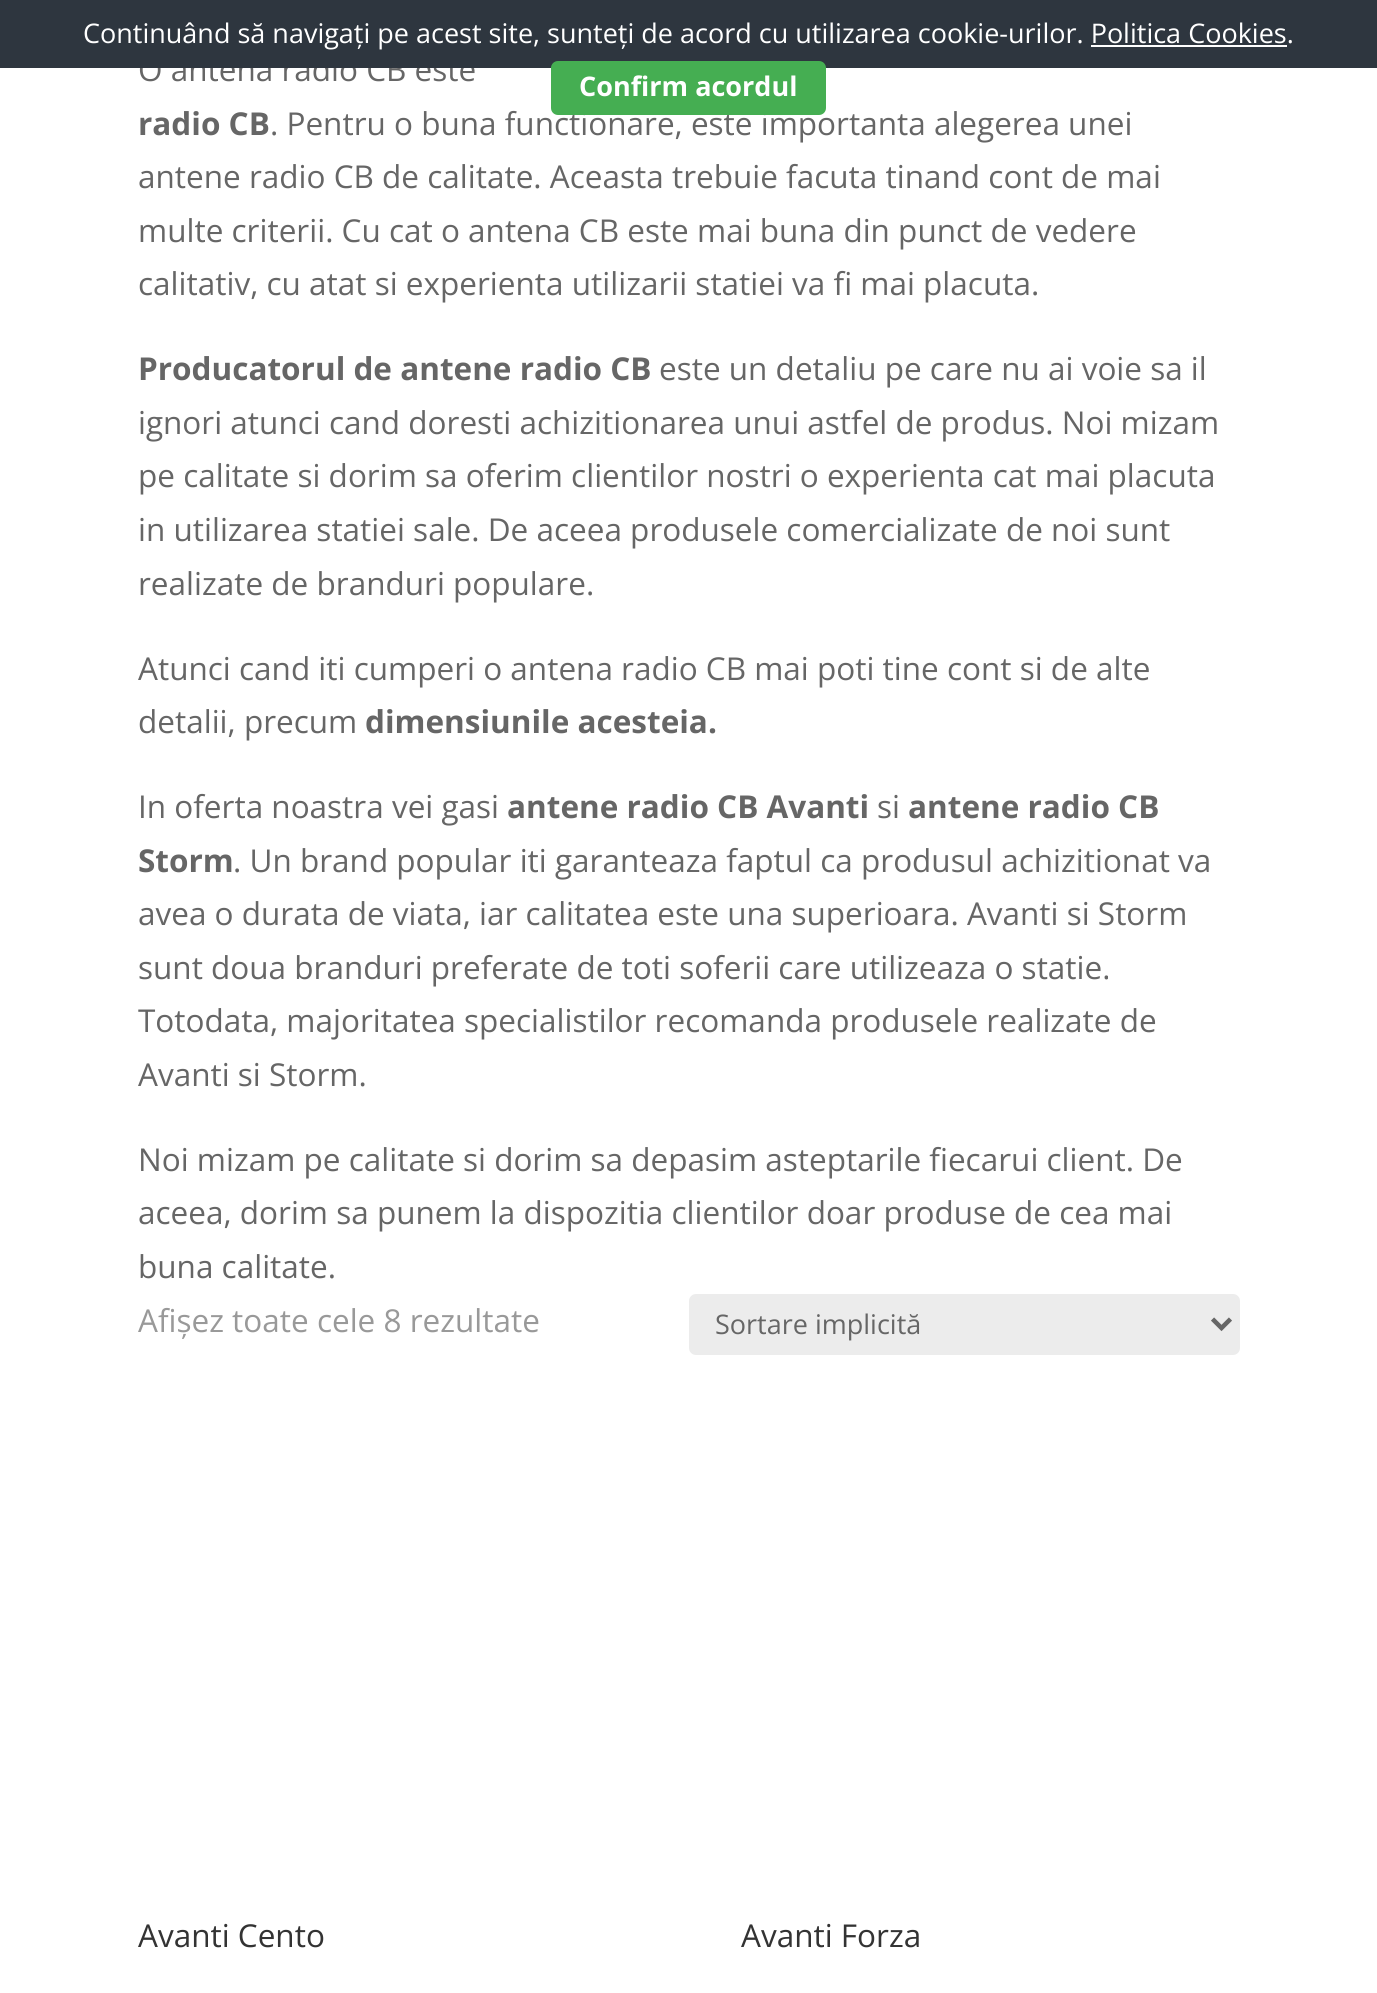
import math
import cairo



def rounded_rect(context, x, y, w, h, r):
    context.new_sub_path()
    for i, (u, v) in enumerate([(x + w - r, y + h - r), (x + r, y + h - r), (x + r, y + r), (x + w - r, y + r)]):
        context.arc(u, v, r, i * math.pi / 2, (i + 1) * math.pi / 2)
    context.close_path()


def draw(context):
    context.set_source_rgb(1, 1, 1)
    context.paint()
    context.set_source_rgb(236 / 255, 236 / 255, 236 / 255)
    rounded_rect(context, 689, 1294, 551, 61, 7)
    context.fill()
    context.new_path()
    context.move_to(1212.5, 1319)
    context.line_to(1221.5, 1328)
    context.line_to(1230.5, 1319)
    context.set_source_rgb(102 / 255, 102 / 255, 102 / 255)
    context.set_line_width(4.5)
    context.stroke()
    context.select_font_face("Open Sans")
    context.set_font_size(31.5)
    context.move_to(138, 81)
    context.show_text("O antena radio CB este")
    context.set_source_rgb(46 / 255, 54 / 255, 63 / 255)
    context.rectangle(0, 0, 1377, 68)
    context.fill()
    context.set_source_rgb(1, 1, 1)
    context.rectangle(1091, 45, 196, 2)
    context.fill()
    context.set_font_size(27)
    context.move_to(83, 43)
    context.show_text("Continuând să navigați pe acest site, sunteți de acord cu utilizarea cookie-urilor. Politica Cookies.")
    context.select_font_face("Open Sans", cairo.FontSlant.NORMAL, cairo.FontWeight.BOLD)
    context.set_font_size(31.5)
    context.set_source_rgb(102 / 255, 102 / 255, 102 / 255)
    context.move_to(138, 135)
    context.show_text("radio CB")
    context.select_font_face("Open Sans")
    context.move_to(270, 135)
    context.show_text(". Pentru o buna functionare, este importanta alegerea unei")
    context.set_source_rgb(69 / 255, 174 / 255, 82 / 255)
    rounded_rect(context, 551, 61, 275, 54, 7)
    context.fill()
    context.select_font_face("Open Sans", cairo.FontSlant.NORMAL, cairo.FontWeight.BOLD)
    context.set_font_size(27)
    context.set_source_rgb(1, 1, 1)
    context.move_to(579, 96)
    context.show_text("Confirm acordul")
    context.select_font_face("Open Sans")
    context.set_font_size(31.5)
    context.set_source_rgb(102 / 255, 102 / 255, 102 / 255)
    context.move_to(138, 188)
    context.show_text("antene radio CB de calitate. Aceasta trebuie facuta tinand cont de mai")
    context.move_to(138, 242)
    context.show_text("multe criterii. Cu cat o antena CB este mai buna din punct de vedere")
    context.move_to(138, 295)
    context.show_text("calitativ, cu atat si experienta utilizarii statiei va fi mai placuta.")
    context.select_font_face("Open Sans", cairo.FontSlant.NORMAL, cairo.FontWeight.BOLD)
    context.move_to(138, 380)
    context.show_text("Producatorul de antene radio CB")
    context.select_font_face("Open Sans")
    context.move_to(659, 380)
    context.show_text("este un detaliu pe care nu ai voie sa il")
    context.move_to(138, 434)
    context.show_text("ignori atunci cand doresti achizitionarea unui astfel de produs. Noi mizam")
    context.move_to(138, 487)
    context.show_text("pe calitate si dorim sa oferim clientilor nostri o experienta cat mai placuta")
    context.move_to(138, 541)
    context.show_text("in utilizarea statiei sale. De aceea produsele comercializate de noi sunt")
    context.move_to(138, 595)
    context.show_text("realizate de branduri populare.")
    context.move_to(138, 680)
    context.show_text("Atunci cand iti cumperi o antena radio CB mai poti tine cont si de alte")
    context.move_to(138, 733)
    context.show_text("detalii, precum")
    context.select_font_face("Open Sans", cairo.FontSlant.NORMAL, cairo.FontWeight.BOLD)
    context.move_to(365, 733)
    context.show_text("dimensiunile acesteia.")
    context.select_font_face("Open Sans")
    context.move_to(138, 818)
    context.show_text("In oferta noastra vei gasi")
    context.select_font_face("Open Sans", cairo.FontSlant.NORMAL, cairo.FontWeight.BOLD)
    context.move_to(507, 818)
    context.show_text("antene radio CB Avanti")
    context.select_font_face("Open Sans")
    context.move_to(877, 818)
    context.show_text("si")
    context.select_font_face("Open Sans", cairo.FontSlant.NORMAL, cairo.FontWeight.BOLD)
    context.move_to(908, 818)
    context.show_text("antene radio CB")
    context.move_to(138, 872)
    context.show_text("Storm")
    context.select_font_face("Open Sans")
    context.move_to(233, 872)
    context.show_text(". Un brand popular iti garanteaza faptul ca produsul achizitionat va")
    context.move_to(138, 925)
    context.show_text("avea o durata de viata, iar calitatea este una superioara. Avanti si Storm")
    context.move_to(138, 979)
    context.show_text("sunt doua branduri preferate de toti soferii care utilizeaza o statie.")
    context.move_to(138, 1032)
    context.show_text("Totodata, majoritatea specialistilor recomanda produsele realizate de")
    context.move_to(138, 1086)
    context.show_text("Avanti si Storm.")
    context.move_to(138, 1171)
    context.show_text("Noi mizam pe calitate si dorim sa depasim asteptarile fiecarui client. De")
    context.move_to(138, 1224)
    context.show_text("aceea, dorim sa punem la dispozitia clientilor doar produse de cea mai")
    context.move_to(138, 1278)
    context.show_text("buna calitate.")
    context.set_source_rgb(153 / 255, 153 / 255, 153 / 255)
    context.move_to(138, 1332)
    context.show_text("Afișez toate cele 8 rezultate")
    context.set_font_size(27)
    context.set_source_rgb(102 / 255, 102 / 255, 102 / 255)
    context.move_to(715, 1334)
    context.show_text("Sortare implicită")
    context.set_font_size(31.5)
    context.set_source_rgb(51 / 255, 51 / 255, 51 / 255)
    context.move_to(138, 1947)
    context.show_text("Avanti Cento")
    context.move_to(741, 1947)
    context.show_text("Avanti Forza")


surface = cairo.ImageSurface(cairo.Format.RGB24, 1377, 1993)
context = cairo.Context(surface)
options = cairo.FontOptions()
options.set_hint_metrics(cairo.HintMetrics.OFF)
options.set_hint_style(cairo.HintStyle.NONE)
context.set_font_options(options)
context.set_miter_limit(4)
draw(context)
surface.write_to_png("out.png")
